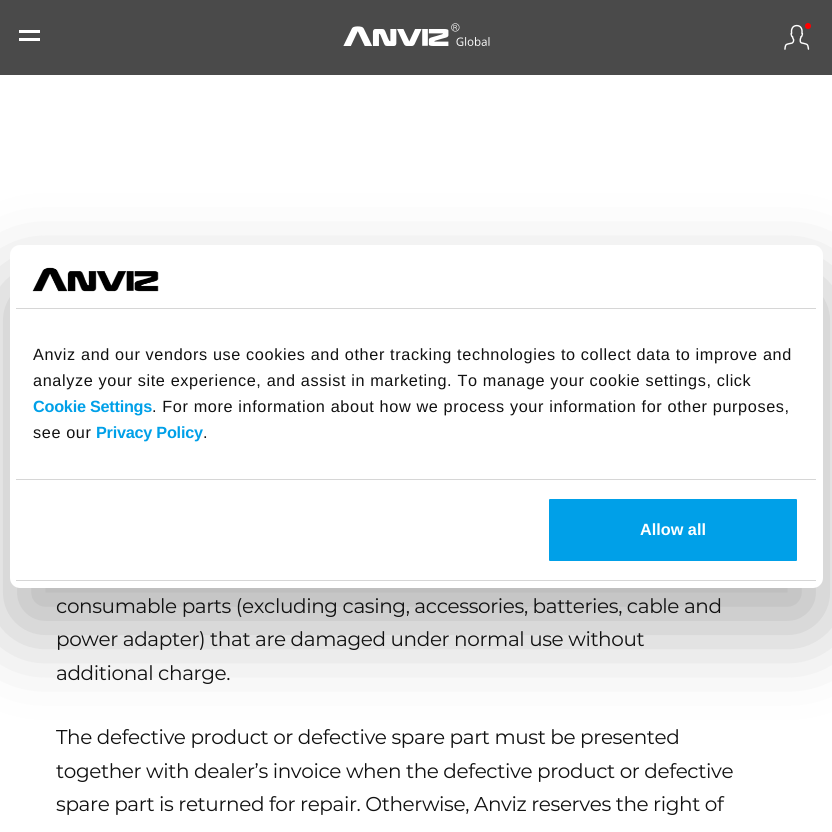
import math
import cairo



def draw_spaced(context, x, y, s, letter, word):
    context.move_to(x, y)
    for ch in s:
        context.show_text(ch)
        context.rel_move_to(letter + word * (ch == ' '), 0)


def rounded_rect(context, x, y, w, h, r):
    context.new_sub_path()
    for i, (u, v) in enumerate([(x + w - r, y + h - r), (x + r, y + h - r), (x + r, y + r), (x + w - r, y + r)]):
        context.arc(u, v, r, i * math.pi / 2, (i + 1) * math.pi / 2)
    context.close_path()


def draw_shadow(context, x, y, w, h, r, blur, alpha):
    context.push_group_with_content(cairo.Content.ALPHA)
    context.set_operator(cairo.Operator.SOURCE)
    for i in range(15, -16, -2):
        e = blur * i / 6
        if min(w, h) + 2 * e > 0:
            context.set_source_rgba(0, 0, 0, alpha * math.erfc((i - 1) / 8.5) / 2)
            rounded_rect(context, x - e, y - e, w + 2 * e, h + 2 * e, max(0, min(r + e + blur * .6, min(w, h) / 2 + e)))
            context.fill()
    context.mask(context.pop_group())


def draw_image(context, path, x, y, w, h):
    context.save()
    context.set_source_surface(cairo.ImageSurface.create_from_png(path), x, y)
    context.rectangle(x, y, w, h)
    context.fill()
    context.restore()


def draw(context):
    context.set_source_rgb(1, 1, 1)
    context.paint()
    context.set_source_rgb(74 / 255, 74 / 255, 74 / 255)
    context.rectangle(0, 0, 832, 75)
    context.fill()
    context.set_source_rgb(1, 1, 1)
    context.rectangle(19, 30, 21, 3)
    context.fill()
    context.rectangle(19, 38, 21, 3)
    context.fill()
    draw_image(context, "images/1.png", 343, 23, 147, 23)
    draw_image(context, "images/2.png", 784, 24, 26, 26)
    context.set_source_rgb(1, 0, 0)
    context.arc(808, 26, 3, 0, 2 * math.pi)
    context.fill()
    context.set_source_rgb(0, 0, 0)
    draw_shadow(context, 10, 285, 813, 343, 10, 42.5, 0.3)
    context.set_source_rgb(1, 1, 1)
    rounded_rect(context, 10, 245, 813, 343, 10)
    context.fill()
    context.set_source_rgb(214 / 255, 214 / 255, 214 / 255)
    context.rectangle(16, 308, 800, 1)
    context.fill()
    draw_image(context, "images/3.png", 32, 267, 127, 25)
    context.rectangle(16, 479, 800, 1)
    context.fill()
    context.rectangle(16, 580, 800, 1)
    context.fill()
    context.set_source_rgb(0, 160 / 255, 232 / 255)
    rounded_rect(context, 547.5, 497.5, 251, 65, 2.5)
    context.fill_preserve()
    context.set_source_rgb(1, 1, 1)
    context.set_line_width(3)
    context.stroke()
    context.select_font_face("Liberation Sans")
    context.set_font_size(16.25)
    context.set_source_rgb(17 / 255, 17 / 255, 17 / 255)
    draw_spaced(context, 33, 360, "Anviz and our vendors use cookies and other tracking technologies to collect data to improve and", 0.62, 0)
    draw_spaced(context, 33, 386, "analyze your site experience, and assist in marketing. To manage your cookie settings, click", 0.62, 0)
    context.select_font_face("Liberation Sans", cairo.FontSlant.NORMAL, cairo.FontWeight.BOLD)
    context.set_source_rgb(0, 160 / 255, 232 / 255)
    draw_spaced(context, 33, 412, "Cookie Settings", -0.25, 0)
    context.select_font_face("Liberation Sans")
    context.set_source_rgb(17 / 255, 17 / 255, 17 / 255)
    draw_spaced(context, 152, 412, ". For more information about how we process your information for other purposes,", 0.62, 0)
    draw_spaced(context, 33, 438, "see our", 0.62, 0)
    context.select_font_face("Liberation Sans", cairo.FontSlant.NORMAL, cairo.FontWeight.BOLD)
    context.set_source_rgb(0, 160 / 255, 232 / 255)
    draw_spaced(context, 96, 438, "Privacy Policy", -0.25, 0)
    context.select_font_face("Liberation Sans")
    context.set_source_rgb(17 / 255, 17 / 255, 17 / 255)
    draw_spaced(context, 203, 438, ".", 0.62, 0)
    context.select_font_face("Liberation Sans", cairo.FontSlant.NORMAL, cairo.FontWeight.BOLD)
    context.set_source_rgb(1, 1, 1)
    context.move_to(640, 535)
    context.show_text("Allow all")
    context.select_font_face("Montserrat Thin")
    context.set_font_size(20)
    context.set_source_rgb(17 / 255, 17 / 255, 17 / 255)
    draw_spaced(context, 56, 613, "consumable parts (excluding casing, accessories, batteries, cable and", -0.38, 0)
    draw_spaced(context, 56, 646, "power adapter) that are damaged under normal use without", -0.38, 0)
    draw_spaced(context, 56, 680, "additional charge.", -0.38, 0)
    draw_spaced(context, 56, 744, "The defective product or defective spare part must be presented", -0.38, 0)
    draw_spaced(context, 56, 778, "together with dealer’s invoice when the defective product or defective", -0.38, 0)
    draw_spaced(context, 56, 811, "spare part is returned for repair. Otherwise, Anviz reserves the right of", -0.38, 0)


surface = cairo.ImageSurface(cairo.Format.RGB24, 832, 832)
context = cairo.Context(surface)
options = cairo.FontOptions()
options.set_hint_metrics(cairo.HintMetrics.OFF)
options.set_hint_style(cairo.HintStyle.NONE)
context.set_font_options(options)
context.set_miter_limit(4)
draw(context)
surface.write_to_png("out.png")
